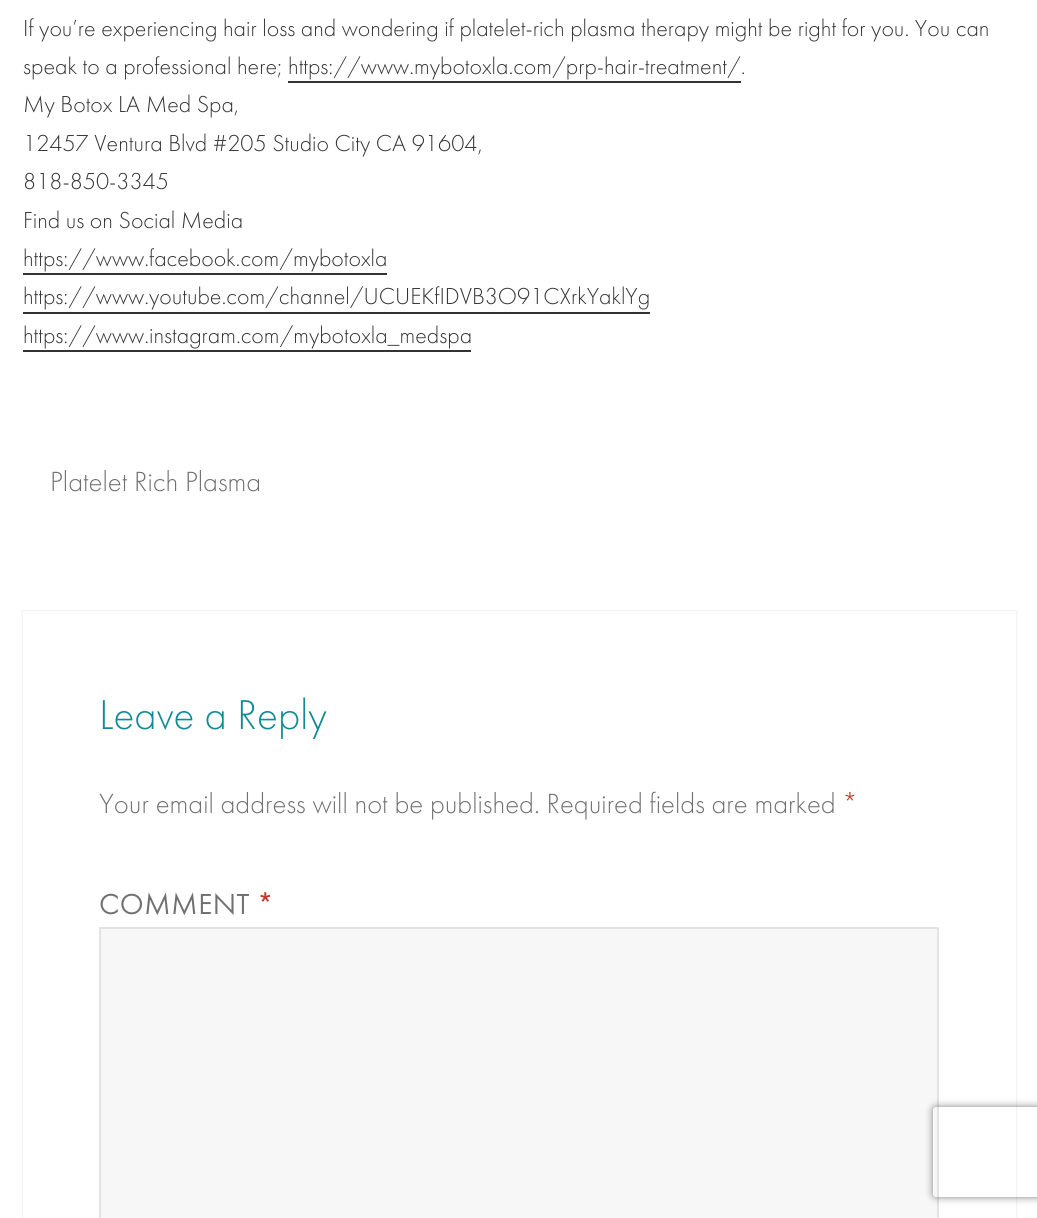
import math
import cairo



def draw_spaced(context, x, y, s, letter, word):
    context.move_to(x, y)
    for ch in s:
        context.show_text(ch)
        context.rel_move_to(letter + word * (ch == ' '), 0)


def rounded_rect(context, x, y, w, h, r):
    context.new_sub_path()
    for i, (u, v) in enumerate([(x + w - r, y + h - r), (x + r, y + h - r), (x + r, y + r), (x + w - r, y + r)]):
        context.arc(u, v, r, i * math.pi / 2, (i + 1) * math.pi / 2)
    context.close_path()


def draw_shadow(context, x, y, w, h, r, blur, alpha):
    context.push_group_with_content(cairo.Content.ALPHA)
    context.set_operator(cairo.Operator.SOURCE)
    for i in range(15, -16, -2):
        e = blur * i / 6
        if min(w, h) + 2 * e > 0:
            context.set_source_rgba(0, 0, 0, alpha * math.erfc((i - 1) / 8.5) / 2)
            rounded_rect(context, x - e, y - e, w + 2 * e, h + 2 * e, max(0, min(r + e + blur * .6, min(w, h) / 2 + e)))
            context.fill()
    context.mask(context.pop_group())


def draw(context):
    context.set_source_rgb(1, 1, 1)
    context.paint()
    context.set_source_rgb(51 / 255, 51 / 255, 51 / 255)
    context.rectangle(288, 81, 453, 2)
    context.fill()
    context.rectangle(23, 273, 364, 2)
    context.fill()
    context.rectangle(23, 312, 627, 2)
    context.fill()
    context.rectangle(23, 350, 448, 2)
    context.fill()
    context.set_source_rgb(0, 0, 0)
    draw_shadow(context, 23, 611, 993, 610, 0, 1, 0.15)
    context.set_source_rgb(1, 1, 1)
    context.rectangle(23, 611, 993, 607)
    context.fill()
    context.set_source_rgb(247 / 255, 247 / 255, 247 / 255)
    context.rectangle(100, 928, 838, 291)
    context.fill_preserve()
    context.set_source_rgb(227 / 255, 227 / 255, 227 / 255)
    context.stroke()
    context.save()
    context.set_fill_rule(cairo.FillRule.EVEN_ODD)
    context.new_path()
    context.move_to(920, 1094)
    context.line_to(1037, 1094)
    context.line_to(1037, 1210)
    context.line_to(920, 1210)
    context.close_path()
    context.move_to(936, 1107)
    context.line_to(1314, 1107)
    context.curve_to(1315.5, 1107, 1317, 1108.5, 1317, 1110)
    context.line_to(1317, 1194)
    context.curve_to(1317, 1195.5, 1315.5, 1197, 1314, 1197)
    context.line_to(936, 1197)
    context.curve_to(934.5, 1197, 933, 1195.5, 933, 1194)
    context.line_to(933, 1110)
    context.curve_to(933, 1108.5, 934.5, 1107, 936, 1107)
    context.close_path()
    context.clip()
    context.set_source_rgb(128 / 255, 128 / 255, 128 / 255)
    draw_shadow(context, 933, 1107, 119, 90, 3, 4, 1)
    context.restore()
    context.select_font_face("Futura PT Light")
    context.set_font_size(24)
    context.set_source_rgb(51 / 255, 51 / 255, 51 / 255)
    context.move_to(23, 36)
    context.show_text("If you’re experiencing hair loss and wondering if platelet-rich plasma therapy might be right for you. You can")
    context.move_to(23, 74)
    context.show_text("speak to a professional here; https://www.mybotoxla.com/prp-hair-treatment/.")
    context.move_to(23, 112)
    context.show_text("My Botox LA Med Spa,")
    context.move_to(23, 151)
    context.show_text("12457 Ventura Blvd #205 Studio City CA 91604,")
    context.move_to(23, 189)
    context.show_text("818-850-3345")
    context.move_to(23, 228)
    context.show_text("Find us on Social Media")
    context.move_to(23, 266)
    context.show_text("https://www.facebook.com/mybotoxla")
    context.move_to(23, 304)
    context.show_text("https://www.youtube.com/channel/UCUEKfIDVB3O91CXrkYaklYg")
    context.move_to(23, 343)
    context.show_text("https://www.instagram.com/mybotoxla_medspa")
    context.set_font_size(28.8)
    context.set_source_rgb(112 / 255, 112 / 255, 112 / 255)
    context.move_to(50, 491)
    context.show_text("Platelet Rich Plasma")
    context.set_font_size(43.25)
    context.set_source_rgb(16 / 255, 139 / 255, 149 / 255)
    context.move_to(99, 729)
    context.show_text("Leave a Reply")
    context.set_font_size(28.8)
    context.set_source_rgb(112 / 255, 112 / 255, 112 / 255)
    context.move_to(99, 813)
    context.show_text("Your email address will not be published. Required fields are marked")
    context.set_source_rgb(192 / 255, 57 / 255, 43 / 255)
    context.move_to(842, 813)
    context.show_text("*")
    context.select_font_face("Futura PT", cairo.FontSlant.NORMAL, cairo.FontWeight.BOLD)
    context.set_source_rgb(112 / 255, 112 / 255, 112 / 255)
    draw_spaced(context, 99, 914, "COMMENT", 1.25, 0)
    context.set_source_rgb(192 / 255, 57 / 255, 43 / 255)
    draw_spaced(context, 257, 914, "*", 1.25, 0)


surface = cairo.ImageSurface(cairo.Format.RGB24, 1037, 1218)
context = cairo.Context(surface)
options = cairo.FontOptions()
options.set_hint_metrics(cairo.HintMetrics.OFF)
options.set_hint_style(cairo.HintStyle.NONE)
context.set_font_options(options)
context.set_miter_limit(4)
draw(context)
surface.write_to_png("out.png")
